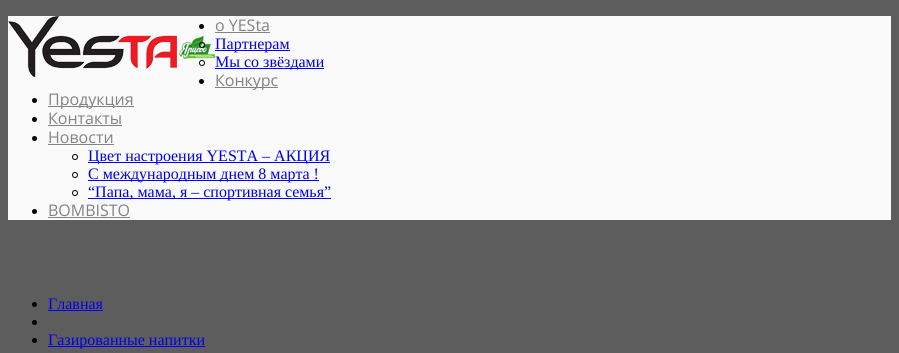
import math
import cairo



def draw_image(context, path, x, y, w, h):
    context.save()
    context.set_source_surface(cairo.ImageSurface.create_from_png(path), x, y)
    context.rectangle(x, y, w, h)
    context.fill()
    context.restore()


def draw(context):
    context.set_source_rgb(93 / 255, 93 / 255, 93 / 255)
    context.paint()
    context.set_source_rgb(250 / 255, 250 / 255, 251 / 255)
    context.rectangle(8, 16, 883, 204)
    context.fill()
    draw_image(context, "images/1.png", 8, 16, 207, 61)
    context.set_source_rgb(0, 0, 0)
    context.arc(201.5, 26.5, 2.5, 0, 2 * math.pi)
    context.fill()
    context.set_source_rgb(131 / 255, 131 / 255, 131 / 255)
    context.rectangle(215, 32, 55, 1)
    context.fill()
    context.arc(202, 45, 2.5, 0, 2 * math.pi)
    context.set_source_rgb(0, 0, 0)
    context.set_line_width(1)
    context.stroke()
    context.set_source_rgb(0, 0, 238 / 255)
    context.rectangle(215, 50, 75, 1)
    context.fill()
    context.arc(202, 63, 2.5, 0, 2 * math.pi)
    context.set_source_rgb(0, 0, 0)
    context.stroke()
    context.set_source_rgb(0, 0, 238 / 255)
    context.rectangle(215, 68, 109, 1)
    context.fill()
    context.set_source_rgb(0, 0, 0)
    context.arc(201.5, 81.5, 2.5, 0, 2 * math.pi)
    context.fill()
    context.set_source_rgb(131 / 255, 131 / 255, 131 / 255)
    context.rectangle(215, 87, 63, 1)
    context.fill()
    context.set_source_rgb(0, 0, 0)
    context.arc(34.5, 100.5, 2.5, 0, 2 * math.pi)
    context.fill()
    context.set_source_rgb(131 / 255, 131 / 255, 131 / 255)
    context.rectangle(48, 106, 86, 1)
    context.fill()
    context.set_source_rgb(0, 0, 0)
    context.arc(34.5, 119.5, 2.5, 0, 2 * math.pi)
    context.fill()
    context.set_source_rgb(131 / 255, 131 / 255, 131 / 255)
    context.rectangle(48, 125, 74, 1)
    context.fill()
    context.set_source_rgb(0, 0, 0)
    context.arc(34.5, 138.5, 2.5, 0, 2 * math.pi)
    context.fill()
    context.set_source_rgb(131 / 255, 131 / 255, 131 / 255)
    context.rectangle(48, 144, 66, 1)
    context.fill()
    context.arc(75, 157, 2.5, 0, 2 * math.pi)
    context.set_source_rgb(0, 0, 0)
    context.stroke()
    context.set_source_rgb(0, 0, 238 / 255)
    context.rectangle(88, 162, 242, 1)
    context.fill()
    context.arc(75, 175, 2.5, 0, 2 * math.pi)
    context.set_source_rgb(0, 0, 0)
    context.stroke()
    context.set_source_rgb(0, 0, 238 / 255)
    context.rectangle(88, 180, 231, 1)
    context.fill()
    context.arc(75, 193, 2.5, 0, 2 * math.pi)
    context.set_source_rgb(0, 0, 0)
    context.stroke()
    context.set_source_rgb(0, 0, 238 / 255)
    context.rectangle(88, 198, 243, 1)
    context.fill()
    context.set_source_rgb(0, 0, 0)
    context.arc(34.5, 211.5, 2.5, 0, 2 * math.pi)
    context.fill()
    context.set_source_rgb(131 / 255, 131 / 255, 131 / 255)
    context.rectangle(48, 217, 82, 1)
    context.fill()
    context.set_source_rgb(0, 0, 0)
    context.arc(34.5, 304.5, 2.5, 0, 2 * math.pi)
    context.fill()
    context.set_source_rgb(0, 0, 238 / 255)
    context.rectangle(48, 310, 55, 1)
    context.fill()
    context.set_source_rgb(0, 0, 0)
    context.arc(34.5, 322.5, 2.5, 0, 2 * math.pi)
    context.fill()
    context.arc(34.5, 340.5, 2.5, 0, 2 * math.pi)
    context.fill()
    context.set_source_rgb(0, 0, 238 / 255)
    context.rectangle(48, 346, 157, 1)
    context.fill()
    context.select_font_face("Open Sans")
    context.set_font_size(16)
    context.set_source_rgb(131 / 255, 131 / 255, 131 / 255)
    context.move_to(215, 31)
    context.show_text("о YESta")
    context.select_font_face("Liberation Serif")
    context.set_source_rgb(0, 0, 238 / 255)
    context.move_to(215, 49)
    context.show_text("Партнерам")
    context.move_to(215, 67)
    context.show_text("Мы со звёздами")
    context.select_font_face("Open Sans")
    context.set_source_rgb(131 / 255, 131 / 255, 131 / 255)
    context.move_to(215, 86)
    context.show_text("Конкурс")
    context.move_to(48, 105)
    context.show_text("Продукция")
    context.move_to(48, 124)
    context.show_text("Контакты")
    context.move_to(48, 143)
    context.show_text("Новости")
    context.select_font_face("Liberation Serif")
    context.set_source_rgb(0, 0, 238 / 255)
    context.move_to(88, 161)
    context.show_text("Цвет настроения YESTA – АКЦИЯ")
    context.move_to(88, 179)
    context.show_text("С международным днем 8 марта !")
    context.move_to(88, 197)
    context.show_text("“Папа, мама, я – спортивная семья”")
    context.select_font_face("Open Sans")
    context.set_source_rgb(131 / 255, 131 / 255, 131 / 255)
    context.move_to(48, 216)
    context.show_text("BOMBISTO")
    context.select_font_face("Liberation Serif")
    context.set_source_rgb(0, 0, 238 / 255)
    context.move_to(48, 309)
    context.show_text("Главная")
    context.move_to(48, 345)
    context.show_text("Газированные напитки")


surface = cairo.ImageSurface(cairo.Format.RGB24, 899, 353)
context = cairo.Context(surface)
options = cairo.FontOptions()
options.set_hint_metrics(cairo.HintMetrics.OFF)
options.set_hint_style(cairo.HintStyle.NONE)
context.set_font_options(options)
context.set_miter_limit(4)
draw(context)
surface.write_to_png("out.png")
